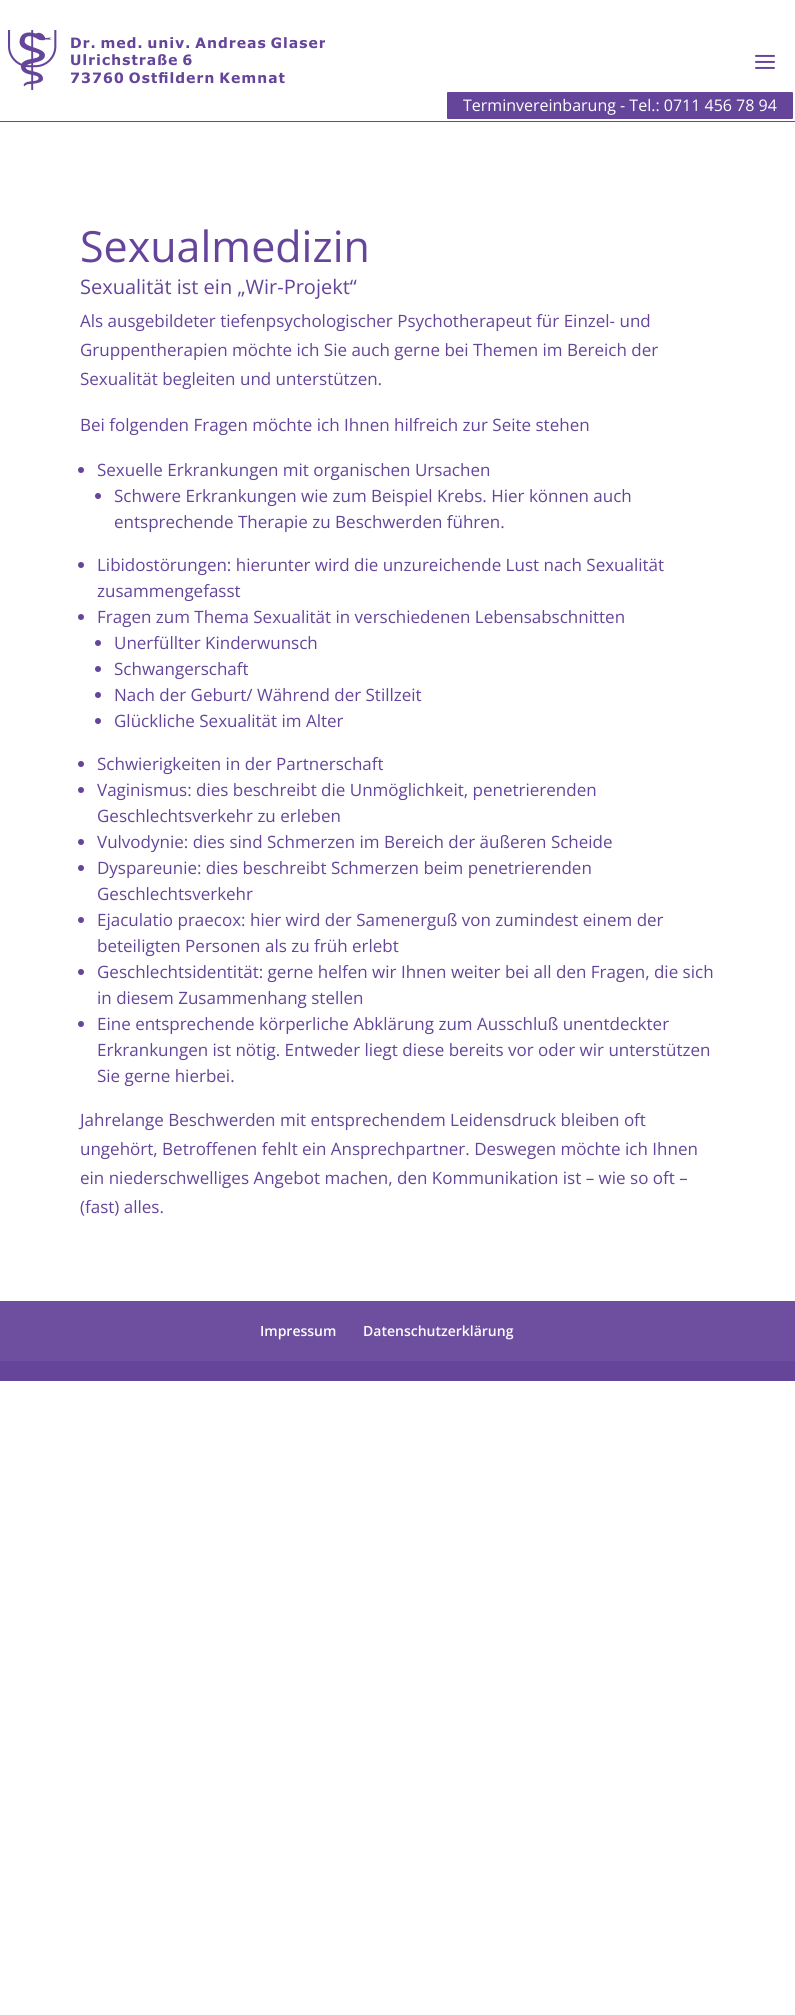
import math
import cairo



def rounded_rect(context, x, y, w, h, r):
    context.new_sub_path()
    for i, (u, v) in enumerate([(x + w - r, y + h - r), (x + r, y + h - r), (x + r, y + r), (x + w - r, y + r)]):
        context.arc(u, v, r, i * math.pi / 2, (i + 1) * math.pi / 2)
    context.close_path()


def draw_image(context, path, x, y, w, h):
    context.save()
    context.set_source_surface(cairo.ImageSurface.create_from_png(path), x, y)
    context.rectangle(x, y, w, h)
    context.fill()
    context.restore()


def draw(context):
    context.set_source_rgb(1, 1, 1)
    context.paint()
    draw_image(context, "images/1.png", 8, 30, 317, 60)
    draw_image(context, "images/2.png", 755, 54, 20, 15)
    context.set_source_rgb(101 / 255, 69 / 255, 154 / 255)
    rounded_rect(context, 446, 91, 348, 29, 2)
    context.fill_preserve()
    context.set_source_rgb(1, 1, 1)
    context.stroke()
    context.set_source_rgb(101 / 255, 69 / 255, 154 / 255)
    context.rectangle(0, 121, 795, 1)
    context.fill()
    context.arc(81, 470, 3, 0, 2 * math.pi)
    context.fill()
    context.arc(98, 496, 3, 0, 2 * math.pi)
    context.fill()
    context.arc(81, 565, 3, 0, 2 * math.pi)
    context.fill()
    context.arc(81, 617, 3, 0, 2 * math.pi)
    context.fill()
    context.arc(98, 643, 3, 0, 2 * math.pi)
    context.fill()
    context.arc(98, 669, 3, 0, 2 * math.pi)
    context.fill()
    context.arc(98, 695, 3, 0, 2 * math.pi)
    context.fill()
    context.arc(98, 721, 3, 0, 2 * math.pi)
    context.fill()
    context.arc(81, 764, 3, 0, 2 * math.pi)
    context.fill()
    context.arc(81, 790, 3, 0, 2 * math.pi)
    context.fill()
    context.arc(81, 842, 3, 0, 2 * math.pi)
    context.fill()
    context.arc(81, 868, 3, 0, 2 * math.pi)
    context.fill()
    context.arc(81, 920, 3, 0, 2 * math.pi)
    context.fill()
    context.arc(81, 972, 3, 0, 2 * math.pi)
    context.fill()
    context.arc(81, 1024, 3, 0, 2 * math.pi)
    context.fill()
    context.rectangle(0, 1361, 795, 20)
    context.fill()
    context.set_source_rgb(109 / 255, 78 / 255, 159 / 255)
    context.rectangle(0, 1301, 795, 60)
    context.fill()
    context.select_font_face("Open Sans")
    context.set_font_size(16)
    context.set_source_rgb(1, 1, 1)
    context.move_to(463, 111)
    context.show_text("Terminvereinbarung - Tel.: 0711 456 78 94")
    context.set_font_size(43)
    context.set_source_rgb(101 / 255, 69 / 255, 154 / 255)
    context.move_to(80, 262)
    context.show_text("Sexualmedizin")
    context.set_font_size(20)
    context.move_to(80, 294)
    context.show_text("Sexualität ist ein „Wir-Projekt“")
    context.set_font_size(17)
    context.move_to(80, 327)
    context.show_text("Als ausgebildeter tiefenpsychologischer Psychotherapeut für Einzel- und")
    context.move_to(80, 356)
    context.show_text("Gruppentherapien möchte ich Sie auch gerne bei Themen im Bereich der")
    context.move_to(80, 385)
    context.show_text("Sexualität begleiten und unterstützen.")
    context.move_to(80, 431)
    context.show_text("Bei folgenden Fragen möchte ich Ihnen hilfreich zur Seite stehen")
    context.move_to(97, 476)
    context.show_text("Sexuelle Erkrankungen mit organischen Ursachen")
    context.move_to(114, 502)
    context.show_text("Schwere Erkrankungen wie zum Beispiel Krebs. Hier können auch")
    context.move_to(114, 528)
    context.show_text("entsprechende Therapie zu Beschwerden führen.")
    context.move_to(97, 571)
    context.show_text("Libidostörungen: hierunter wird die unzureichende Lust nach Sexualität")
    context.move_to(97, 597)
    context.show_text("zusammengefasst")
    context.move_to(97, 623)
    context.show_text("Fragen zum Thema Sexualität in verschiedenen Lebensabschnitten")
    context.move_to(114, 649)
    context.show_text("Unerfüllter Kinderwunsch")
    context.move_to(114, 675)
    context.show_text("Schwangerschaft")
    context.move_to(114, 701)
    context.show_text("Nach der Geburt/ Während der Stillzeit")
    context.move_to(114, 727)
    context.show_text("Glückliche Sexualität im Alter")
    context.move_to(97, 770)
    context.show_text("Schwierigkeiten in der Partnerschaft")
    context.move_to(97, 796)
    context.show_text("Vaginismus: dies beschreibt die Unmöglichkeit, penetrierenden")
    context.move_to(97, 822)
    context.show_text("Geschlechtsverkehr zu erleben")
    context.move_to(97, 848)
    context.show_text("Vulvodynie: dies sind Schmerzen im Bereich der äußeren Scheide")
    context.move_to(97, 874)
    context.show_text("Dyspareunie: dies beschreibt Schmerzen beim penetrierenden")
    context.move_to(97, 900)
    context.show_text("Geschlechtsverkehr")
    context.move_to(97, 926)
    context.show_text("Ejaculatio praecox: hier wird der Samenerguß von zumindest einem der")
    context.move_to(97, 952)
    context.show_text("beteiligten Personen als zu früh erlebt")
    context.move_to(97, 978)
    context.show_text("Geschlechtsidentität: gerne helfen wir Ihnen weiter bei all den Fragen, die sich")
    context.move_to(97, 1004)
    context.show_text("in diesem Zusammenhang stellen")
    context.move_to(97, 1030)
    context.show_text("Eine entsprechende körperliche Abklärung zum Ausschluß unentdeckter")
    context.move_to(97, 1056)
    context.show_text("Erkrankungen ist nötig. Entweder liegt diese bereits vor oder wir unterstützen")
    context.move_to(97, 1082)
    context.show_text("Sie gerne hierbei.")
    context.move_to(80, 1126)
    context.show_text("Jahrelange Beschwerden mit entsprechendem Leidensdruck bleiben oft")
    context.move_to(80, 1155)
    context.show_text("ungehört, Betroffenen fehlt ein Ansprechpartner. Deswegen möchte ich Ihnen")
    context.move_to(80, 1184)
    context.show_text("ein niederschwelliges Angebot machen, den Kommunikation ist – wie so oft –")
    context.move_to(80, 1213)
    context.show_text("(fast) alles.")
    context.select_font_face("Open Sans SemiBold")
    context.set_font_size(14)
    context.set_source_rgb(1, 1, 1)
    context.move_to(260, 1336)
    context.show_text("Impressum")
    context.move_to(363, 1336)
    context.show_text("Datenschutzerklärung")


surface = cairo.ImageSurface(cairo.Format.RGB24, 795, 2015)
context = cairo.Context(surface)
options = cairo.FontOptions()
options.set_hint_metrics(cairo.HintMetrics.OFF)
options.set_hint_style(cairo.HintStyle.NONE)
context.set_font_options(options)
context.set_miter_limit(4)
draw(context)
surface.write_to_png("out.png")
